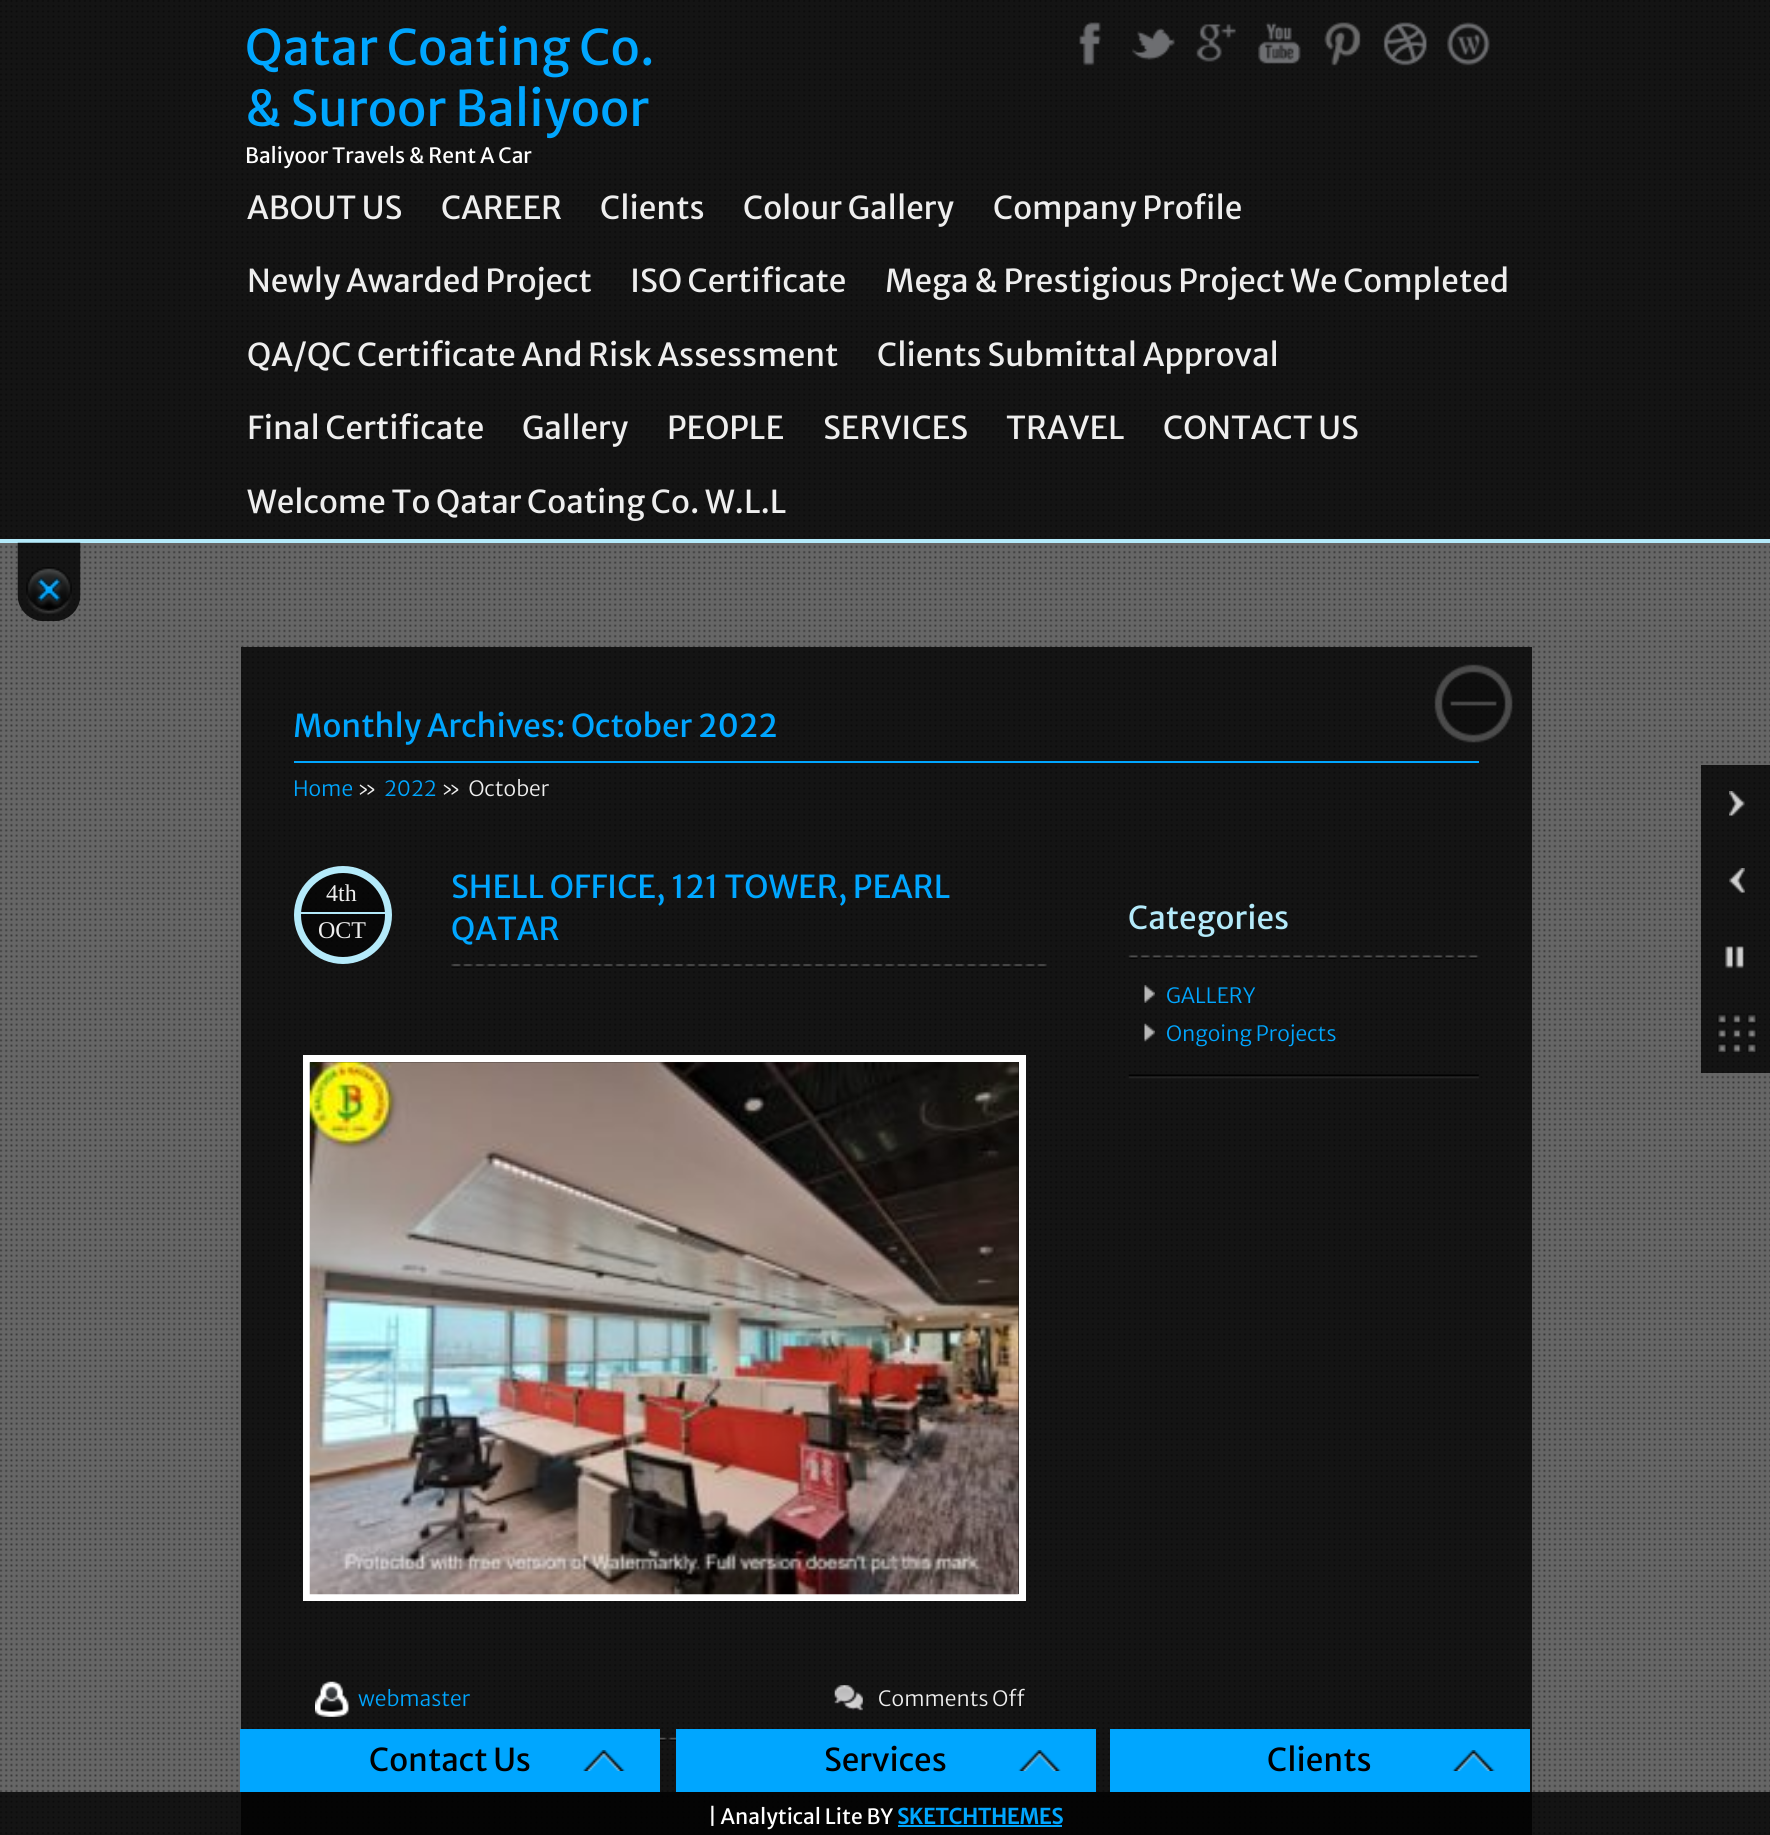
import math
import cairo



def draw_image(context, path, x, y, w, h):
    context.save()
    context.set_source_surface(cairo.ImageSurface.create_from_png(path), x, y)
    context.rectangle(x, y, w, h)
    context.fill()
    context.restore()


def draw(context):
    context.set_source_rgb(102 / 255, 102 / 255, 102 / 255)
    context.paint()
    draw_image(context, "images/1.png", 0, 0, 1770, 1835)
    context.set_source_rgba(0, 0, 0, 0.8)
    context.rectangle(0, 0, 1770, 539)
    context.fill()
    context.set_source_rgb(180 / 255, 234 / 255, 250 / 255)
    context.rectangle(0, 539, 1770, 4)
    context.fill()
    draw_image(context, "images/2.png", 1079, 22, 22, 44)
    draw_image(context, "images/3.png", 1132, 28, 43, 32)
    draw_image(context, "images/4.png", 1196, 24, 40, 38)
    draw_image(context, "images/5.png", 1258, 22, 43, 42)
    draw_image(context, "images/6.png", 1324, 22, 37, 44)
    draw_image(context, "images/7.png", 1383, 22, 44, 44)
    draw_image(context, "images/8.png", 1447, 22, 43, 44)
    draw_image(context, "images/9.png", 17, 542, 64, 80)
    context.set_source_rgb(0, 166 / 255, 1)
    context.rectangle(35, 577, 26, 25)
    context.fill()
    draw_image(context, "images/10.png", 26, 567, 46, 47)
    context.set_source_rgba(0, 0, 0, 0.8)
    context.rectangle(241, 647, 1291, 1188)
    context.fill()
    context.set_source_rgb(0, 166 / 255, 1)
    context.rectangle(294, 761, 1185, 2)
    context.fill()
    draw_image(context, "images/11.png", 294, 866, 98, 98)
    context.arc(343, 915, 45.5, 0, 2 * math.pi)
    context.set_source_rgb(180 / 255, 234 / 255, 250 / 255)
    context.set_line_width(7)
    context.stroke()
    context.rectangle(301, 912, 84, 2)
    context.fill()
    draw_image(context, "images/12.png", 451, 964, 596, 4)
    context.rectangle(306.5, 1058.5, 716, 539)
    context.set_source_rgb(1, 1, 1)
    context.stroke()
    draw_image(context, "images/13.png", 309, 1062, 710, 533)
    draw_image(context, "images/14.png", 315, 1681, 35, 36)
    draw_image(context, "images/15.png", 834, 1685, 29, 26)
    draw_image(context, "images/16.png", 660, 1737, 16, 4)
    draw_image(context, "images/17.png", 1128, 1074, 351, 5)
    draw_image(context, "images/18.png", 1128, 955, 351, 4)
    draw_image(context, "images/19.png", 1144, 985, 11, 18)
    draw_image(context, "images/20.png", 1144, 1023, 11, 19)
    draw_image(context, "images/21.png", 1434, 664, 79, 79)
    context.set_source_rgb(0, 166 / 255, 1)
    context.rectangle(240, 1729, 420, 63)
    context.fill()
    draw_image(context, "images/22.png", 583, 1750, 42, 21)
    context.rectangle(676, 1729, 420, 63)
    context.fill()
    draw_image(context, "images/23.png", 1018, 1750, 43, 21)
    context.rectangle(1110, 1729, 420, 63)
    context.fill()
    draw_image(context, "images/24.png", 1452, 1750, 43, 21)
    context.set_source_rgba(0, 0, 0, 0.8)
    context.rectangle(0, 1792, 1770, 43)
    context.fill()
    context.set_source_rgb(0, 166 / 255, 1)
    context.rectangle(898, 1825, 164, 2)
    context.fill()
    context.set_source_rgba(0, 0, 0, 0.8)
    context.rectangle(1701, 765, 69, 77)
    context.fill()
    draw_image(context, "images/25.png", 1729, 791, 16, 25)
    context.rectangle(1701, 842, 69, 77)
    context.fill()
    draw_image(context, "images/26.png", 1729, 868, 16, 25)
    context.rectangle(1701, 919, 69, 77)
    context.fill()
    draw_image(context, "images/27.png", 1725, 946, 19, 23)
    context.rectangle(1701, 996, 69, 77)
    context.fill()
    draw_image(context, "images/28.png", 1717, 1013, 40, 40)
    context.select_font_face("Merriweather Sans")
    context.set_font_size(49)
    context.set_source_rgb(0, 166 / 255, 1)
    context.move_to(245, 65)
    context.show_text("Qatar Coating Co.")
    context.move_to(245, 126)
    context.show_text("& Suroor Baliyoor")
    context.set_font_size(21)
    context.set_source_rgb(1, 1, 1)
    context.move_to(245, 163)
    context.show_text("Baliyoor Travels & Rent A Car")
    context.set_font_size(31.5)
    context.set_source_rgb(238 / 255, 238 / 255, 238 / 255)
    context.move_to(247, 219)
    context.show_text("ABOUT US")
    context.move_to(441, 219)
    context.show_text("CAREER")
    context.move_to(600, 219)
    context.show_text("Clients")
    context.move_to(743, 219)
    context.show_text("Colour Gallery")
    context.move_to(993, 219)
    context.show_text("Company Profile")
    context.move_to(247, 292)
    context.show_text("Newly Awarded Project")
    context.move_to(630, 292)
    context.show_text("ISO Certificate")
    context.move_to(885, 292)
    context.show_text("Mega & Prestigious Project We Completed")
    context.move_to(247, 366)
    context.show_text("QA/QC Certificate And Risk Assessment")
    context.move_to(877, 366)
    context.show_text("Clients Submittal Approval")
    context.move_to(247, 439)
    context.show_text("Final Certificate")
    context.move_to(522, 439)
    context.show_text("Gallery")
    context.move_to(667, 439)
    context.show_text("PEOPLE")
    context.move_to(823, 439)
    context.show_text("SERVICES")
    context.move_to(1006, 439)
    context.show_text("TRAVEL")
    context.move_to(1163, 439)
    context.show_text("CONTACT US")
    context.move_to(247, 513)
    context.show_text("Welcome To Qatar Coating Co. W.L.L")
    context.set_source_rgb(0, 166 / 255, 1)
    context.move_to(293, 737)
    context.show_text("Monthly Archives: October 2022")
    context.select_font_face("Merriweather Sans Light")
    context.set_font_size(21)
    context.move_to(293, 796)
    context.show_text("Home")
    context.set_source_rgb(238 / 255, 238 / 255, 238 / 255)
    context.move_to(357, 796)
    context.show_text("»")
    context.set_source_rgb(0, 166 / 255, 1)
    context.move_to(384, 796)
    context.show_text("2022")
    context.set_source_rgb(238 / 255, 238 / 255, 238 / 255)
    context.move_to(441, 796)
    context.show_text("»  October")
    context.select_font_face("Liberation Serif")
    context.set_font_size(24)
    context.move_to(326, 901)
    context.show_text("4th")
    context.move_to(318, 938)
    context.show_text("OCT")
    context.select_font_face("Merriweather Sans")
    context.set_font_size(31.5)
    context.set_source_rgb(0, 166 / 255, 1)
    context.move_to(451, 898)
    context.show_text("SHELL OFFICE, 121 TOWER, PEARL")
    context.move_to(451, 940)
    context.show_text("QATAR")
    context.select_font_face("Merriweather Sans Light")
    context.set_font_size(21)
    context.move_to(358, 1706)
    context.show_text("webmaster")
    context.set_source_rgb(238 / 255, 238 / 255, 238 / 255)
    context.move_to(878, 1706)
    context.show_text("Comments Off")
    context.select_font_face("Merriweather Sans")
    context.set_font_size(31.5)
    context.set_source_rgb(180 / 255, 234 / 255, 250 / 255)
    context.move_to(1128, 929)
    context.show_text("Categories")
    context.select_font_face("Merriweather Sans Light")
    context.set_font_size(21)
    context.set_source_rgb(0, 166 / 255, 1)
    context.move_to(1166, 1003)
    context.show_text("GALLERY")
    context.move_to(1166, 1041)
    context.show_text("Ongoing Projects")
    context.select_font_face("Merriweather Sans")
    context.set_font_size(31.5)
    context.set_source_rgb(0, 0, 0)
    context.move_to(369, 1771)
    context.show_text("Contact Us")
    context.move_to(824, 1771)
    context.show_text("Services")
    context.move_to(1267, 1771)
    context.show_text("Clients")
    context.set_font_size(21)
    context.set_source_rgb(1, 1, 1)
    context.move_to(708, 1824)
    context.show_text("| Analytical Lite BY")
    context.select_font_face("Merriweather Sans", cairo.FontSlant.NORMAL, cairo.FontWeight.BOLD)
    context.set_source_rgb(0, 166 / 255, 1)
    context.move_to(897, 1824)
    context.show_text("SKETCHTHEMES")


surface = cairo.ImageSurface(cairo.Format.RGB24, 1770, 1835)
context = cairo.Context(surface)
options = cairo.FontOptions()
options.set_hint_metrics(cairo.HintMetrics.OFF)
options.set_hint_style(cairo.HintStyle.NONE)
context.set_font_options(options)
context.set_miter_limit(4)
draw(context)
surface.write_to_png("out.png")
